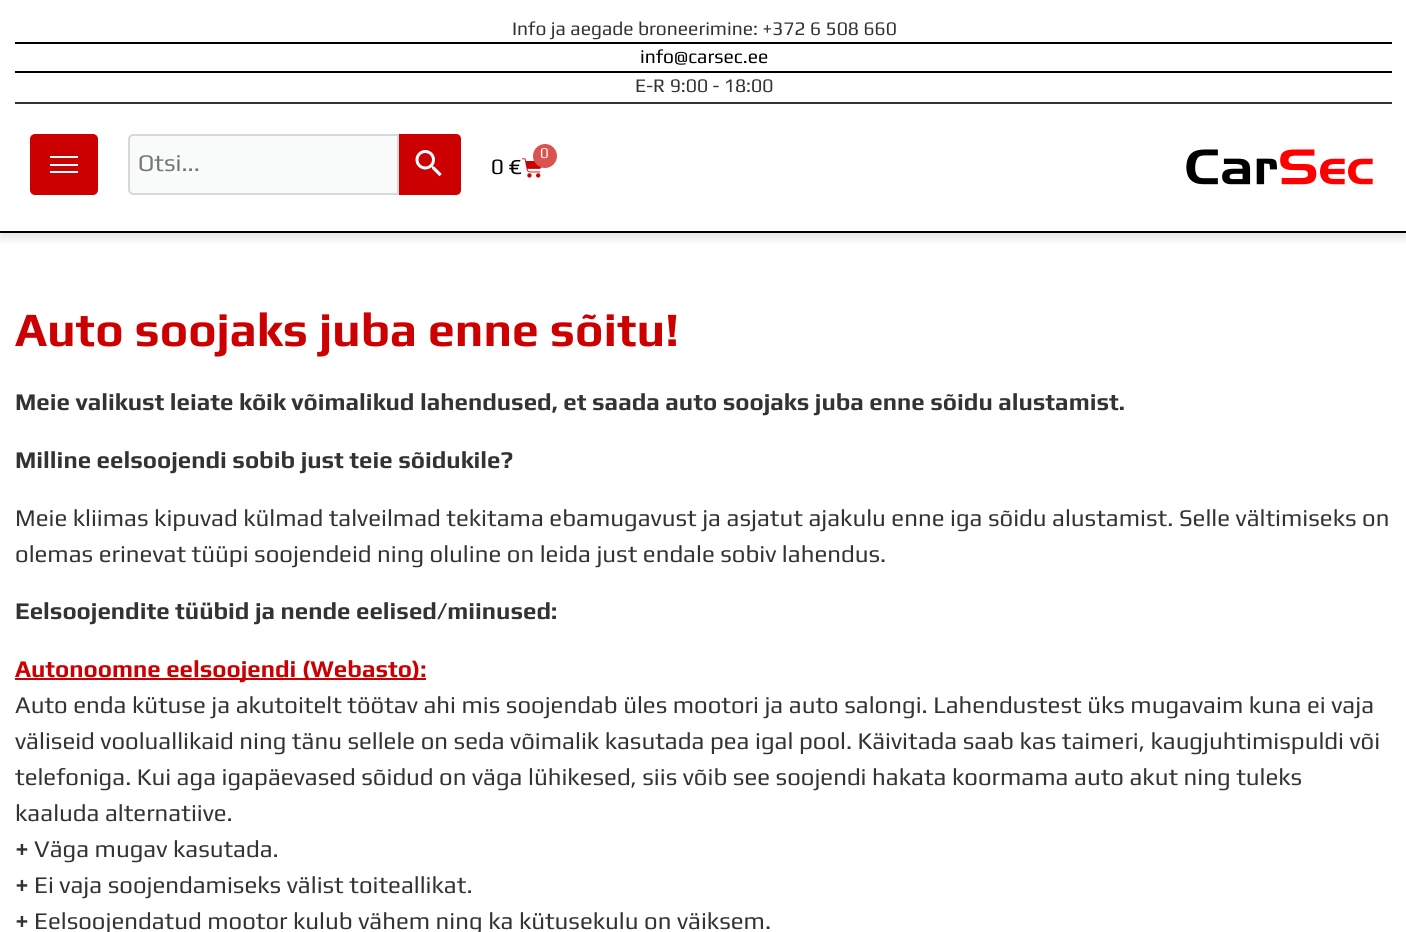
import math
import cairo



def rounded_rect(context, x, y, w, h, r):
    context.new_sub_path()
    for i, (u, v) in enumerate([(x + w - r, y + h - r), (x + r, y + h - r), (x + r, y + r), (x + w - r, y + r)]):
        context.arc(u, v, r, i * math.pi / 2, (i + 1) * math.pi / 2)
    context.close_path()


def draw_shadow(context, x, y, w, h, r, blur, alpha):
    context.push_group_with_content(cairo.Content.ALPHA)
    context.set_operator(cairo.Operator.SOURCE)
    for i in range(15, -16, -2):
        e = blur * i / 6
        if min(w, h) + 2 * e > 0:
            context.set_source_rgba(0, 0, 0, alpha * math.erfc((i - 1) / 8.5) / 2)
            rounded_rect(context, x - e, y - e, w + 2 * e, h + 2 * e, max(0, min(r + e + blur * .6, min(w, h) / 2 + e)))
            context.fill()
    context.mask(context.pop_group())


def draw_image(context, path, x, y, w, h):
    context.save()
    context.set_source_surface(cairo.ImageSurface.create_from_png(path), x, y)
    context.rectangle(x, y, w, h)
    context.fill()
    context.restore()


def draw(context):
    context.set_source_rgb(1, 1, 1)
    context.paint()
    context.set_source_rgb(51 / 255, 51 / 255, 51 / 255)
    context.rectangle(15, 102, 1377, 2)
    context.fill()
    context.set_source_rgb(0, 0, 0)
    context.rectangle(15, 42, 1377, 2)
    context.fill()
    context.rectangle(15, 71, 1377, 2)
    context.fill()
    context.save()
    context.rectangle(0, 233, 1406, 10)
    context.clip()
    context.set_source_rgb(0, 0, 0)
    draw_shadow(context, 0, 125, 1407, 114, 0, 4.5, 0.1)
    context.restore()
    context.rectangle(0, 231, 1406, 2)
    context.fill()
    context.set_source_rgb(204 / 255, 0, 0)
    rounded_rect(context, 30, 134, 68, 61, 5)
    context.fill()
    context.set_source_rgb(1, 1, 1)
    context.rectangle(50, 156, 28, 2)
    context.fill()
    context.rectangle(50, 164, 28, 2)
    context.fill()
    context.rectangle(50, 171, 28, 2)
    context.fill()
    context.set_source_rgb(204 / 255, 0, 0)
    context.new_path()
    context.move_to(398, 134)
    context.line_to(456, 134)
    context.curve_to(459, 134, 461, 136, 461, 139)
    context.line_to(461, 190)
    context.curve_to(461, 193, 459, 195, 456, 195)
    context.line_to(398, 195)
    context.close_path()
    context.fill()
    context.set_source_rgb(249 / 255, 250 / 255, 250 / 255)
    context.new_path()
    context.move_to(133, 135)
    context.line_to(398, 135)
    context.line_to(398, 194)
    context.line_to(133, 194)
    context.curve_to(131, 194, 129, 192, 129, 190)
    context.line_to(129, 139)
    context.curve_to(129, 137, 131, 135, 133, 135)
    context.close_path()
    context.fill_preserve()
    context.set_source_rgb(216 / 255, 216 / 255, 216 / 255)
    context.stroke()
    draw_image(context, "images/1.png", 415, 150, 27, 27)
    draw_image(context, "images/2.png", 522, 158, 20, 20)
    context.set_source_rgb(217 / 255, 83 / 255, 79 / 255)
    context.arc(545, 156, 12, 0, 2 * math.pi)
    context.fill()
    draw_image(context, "images/3.png", 1186, 149, 187, 36)
    context.set_source_rgb(204 / 255, 0, 0)
    context.rectangle(15, 678, 411, 2)
    context.fill()
    context.select_font_face("Play")
    context.set_font_size(19.25)
    context.set_source_rgb(51 / 255, 51 / 255, 51 / 255)
    context.move_to(512, 35)
    context.show_text("Info ja aegade broneerimine: +372 6 508 660")
    context.set_source_rgb(0, 0, 0)
    context.move_to(640, 63)
    context.show_text("info@carsec.ee")
    context.set_source_rgb(51 / 255, 51 / 255, 51 / 255)
    context.move_to(635, 92)
    context.show_text("E-R 9:00 - 18:00")
    context.set_font_size(24)
    context.set_source_rgb(117 / 255, 117 / 255, 117 / 255)
    context.move_to(138, 171)
    context.show_text("Otsi...")
    context.set_font_size(15)
    context.set_source_rgb(1, 1, 1)
    context.move_to(540, 158)
    context.show_text("0")
    context.set_font_size(22)
    context.set_source_rgb(0, 0, 0)
    context.move_to(491, 174)
    context.show_text("0 €")
    context.select_font_face("Play", cairo.FontSlant.NORMAL, cairo.FontWeight.BOLD)
    context.set_font_size(48)
    context.set_source_rgb(204 / 255, 0, 0)
    context.move_to(15, 346)
    context.show_text("Auto soojaks juba enne sõitu!")
    context.set_font_size(24)
    context.set_source_rgb(51 / 255, 51 / 255, 51 / 255)
    context.move_to(15, 410)
    context.show_text("Meie valikust leiate kõik võimalikud lahendused, et saada auto soojaks juba enne sõidu alustamist.")
    context.move_to(15, 468)
    context.show_text("Milline eelsoojendi sobib just teie sõidukile?")
    context.select_font_face("Play")
    context.move_to(15, 526)
    context.show_text("Meie kliimas kipuvad külmad talveilmad tekitama ebamugavust ja asjatut ajakulu enne iga sõidu alustamist. Selle vältimiseks on")
    context.move_to(15, 562)
    context.show_text("olemas erinevat tüüpi soojendeid ning oluline on leida just endale sobiv lahendus.")
    context.select_font_face("Play", cairo.FontSlant.NORMAL, cairo.FontWeight.BOLD)
    context.move_to(15, 619)
    context.show_text("Eelsoojendite tüübid ja nende eelised/miinused:")
    context.set_source_rgb(204 / 255, 0, 0)
    context.move_to(15, 677)
    context.show_text("Autonoomne eelsoojendi (Webasto):")
    context.select_font_face("Play")
    context.set_source_rgb(51 / 255, 51 / 255, 51 / 255)
    context.move_to(15, 713)
    context.show_text("Auto enda kütuse ja akutoitelt töötav ahi mis soojendab üles mootori ja auto salongi. Lahendustest üks mugavaim kuna ei vaja")
    context.move_to(15, 749)
    context.show_text("väliseid vooluallikaid ning tänu sellele on seda võimalik kasutada pea igal pool. Käivitada saab kas taimeri, kaugjuhtimispuldi või")
    context.move_to(15, 785)
    context.show_text("telefoniga. Kui aga igapäevased sõidud on väga lühikesed, siis võib see soojendi hakata koormama auto akut ning tuleks")
    context.move_to(15, 821)
    context.show_text("kaaluda alternatiive.")
    context.select_font_face("Play", cairo.FontSlant.NORMAL, cairo.FontWeight.BOLD)
    context.move_to(15, 857)
    context.show_text("+")
    context.select_font_face("Play")
    context.move_to(34, 857)
    context.show_text("Väga mugav kasutada.")
    context.select_font_face("Play", cairo.FontSlant.NORMAL, cairo.FontWeight.BOLD)
    context.move_to(15, 893)
    context.show_text("+")
    context.select_font_face("Play")
    context.move_to(34, 893)
    context.show_text("Ei vaja soojendamiseks välist toiteallikat.")
    context.select_font_face("Play", cairo.FontSlant.NORMAL, cairo.FontWeight.BOLD)
    context.move_to(15, 929)
    context.show_text("+")
    context.select_font_face("Play")
    context.move_to(34, 929)
    context.show_text("Eelsoojendatud mootor kulub vähem ning ka kütusekulu on väiksem.")


surface = cairo.ImageSurface(cairo.Format.RGB24, 1406, 932)
context = cairo.Context(surface)
options = cairo.FontOptions()
options.set_hint_metrics(cairo.HintMetrics.OFF)
options.set_hint_style(cairo.HintStyle.NONE)
context.set_font_options(options)
context.set_miter_limit(4)
draw(context)
surface.write_to_png("out.png")
